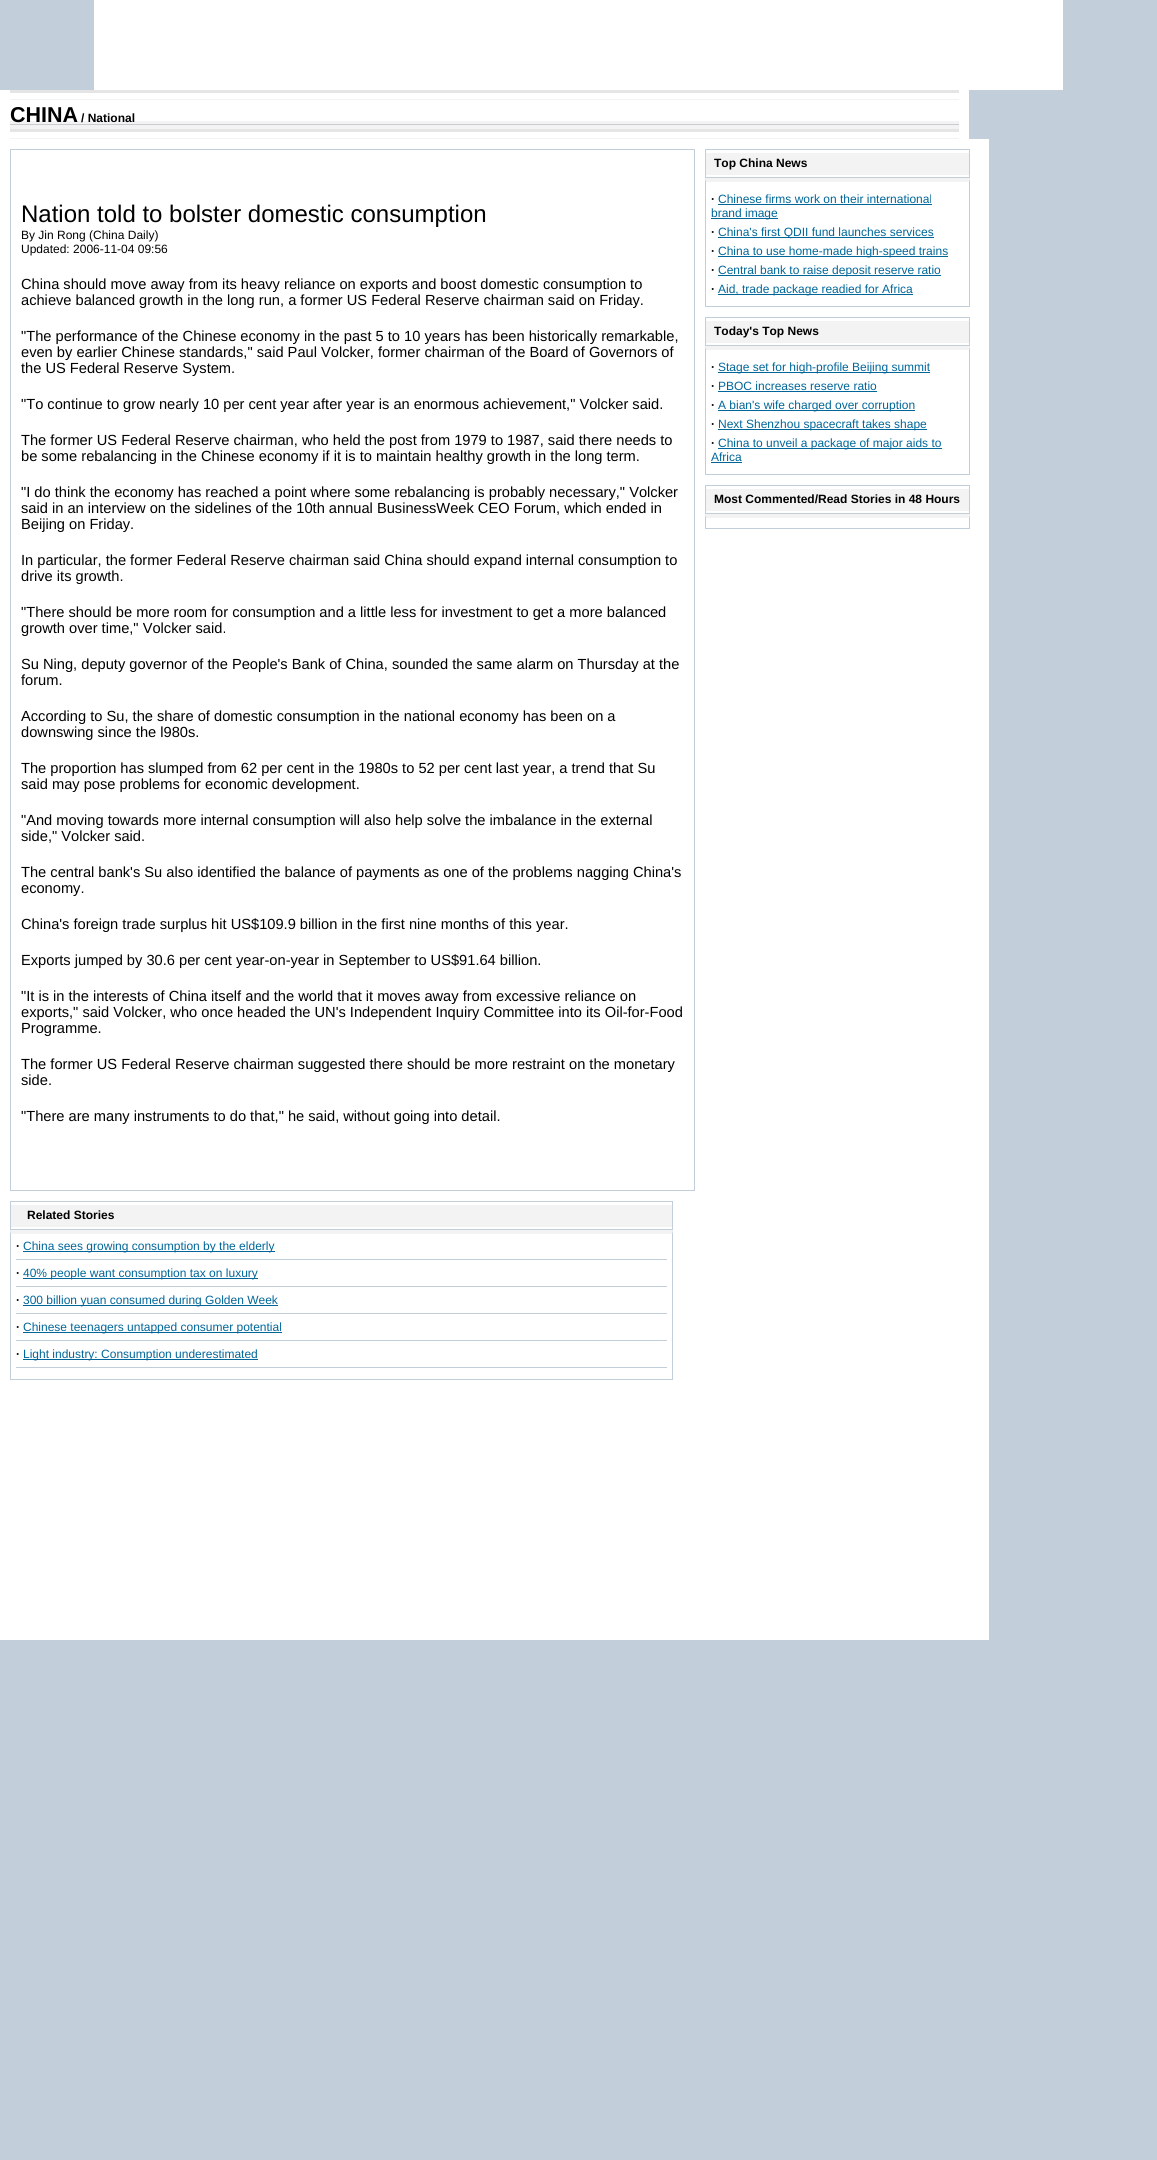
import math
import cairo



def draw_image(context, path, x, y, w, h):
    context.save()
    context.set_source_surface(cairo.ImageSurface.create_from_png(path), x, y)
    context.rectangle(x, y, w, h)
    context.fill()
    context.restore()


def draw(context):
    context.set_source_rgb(194 / 255, 206 / 255, 218 / 255)
    context.paint()
    context.set_source_rgb(1, 1, 1)
    context.rectangle(94, 0, 969, 90)
    context.fill()
    context.rectangle(0, 90, 969, 49)
    context.fill()
    draw_image(context, "images/1.png", 10, 90, 949, 49)
    context.rectangle(0, 139, 989, 1501)
    context.fill()
    context.rectangle(10.5, 149.5, 684, 1041)
    context.set_source_rgb(194 / 255, 206 / 255, 218 / 255)
    context.set_line_width(1)
    context.stroke()
    context.set_source_rgb(243 / 255, 243 / 255, 243 / 255)
    context.rectangle(11, 1205, 661, 22)
    context.fill()
    context.rectangle(10.5, 1201.5, 662, 28)
    context.set_source_rgb(194 / 255, 206 / 255, 218 / 255)
    context.stroke()
    context.set_source_rgb(243 / 255, 243 / 255, 243 / 255)
    context.new_path()
    context.move_to(10, 1230)
    context.line_to(673, 1230)
    context.line_to(672, 1234)
    context.line_to(11, 1234)
    context.close_path()
    context.fill()
    context.set_source_rgb(194 / 255, 206 / 255, 218 / 255)
    context.new_path()
    context.move_to(673, 1230)
    context.line_to(673, 1380)
    context.line_to(672, 1379)
    context.line_to(672, 1234)
    context.close_path()
    context.fill()
    context.rectangle(10, 1379, 663, 1)
    context.fill()
    context.new_path()
    context.move_to(10, 1380)
    context.line_to(10, 1230)
    context.line_to(11, 1234)
    context.line_to(11, 1379)
    context.close_path()
    context.fill()
    context.set_source_rgb(0, 102 / 255, 153 / 255)
    context.rectangle(23, 1251, 252, 1)
    context.fill()
    context.set_source_rgb(194 / 255, 206 / 255, 218 / 255)
    context.rectangle(16, 1259, 651, 1)
    context.fill()
    context.set_source_rgb(0, 102 / 255, 153 / 255)
    context.rectangle(23, 1278, 235, 1)
    context.fill()
    context.set_source_rgb(194 / 255, 206 / 255, 218 / 255)
    context.rectangle(16, 1286, 651, 1)
    context.fill()
    context.set_source_rgb(0, 102 / 255, 153 / 255)
    context.rectangle(23, 1305, 255, 1)
    context.fill()
    context.set_source_rgb(194 / 255, 206 / 255, 218 / 255)
    context.rectangle(16, 1313, 651, 1)
    context.fill()
    context.set_source_rgb(0, 102 / 255, 153 / 255)
    context.rectangle(23, 1332, 259, 1)
    context.fill()
    context.set_source_rgb(194 / 255, 206 / 255, 218 / 255)
    context.rectangle(16, 1340, 651, 1)
    context.fill()
    context.set_source_rgb(0, 102 / 255, 153 / 255)
    context.rectangle(23, 1359, 235, 1)
    context.fill()
    context.set_source_rgb(194 / 255, 206 / 255, 218 / 255)
    context.rectangle(16, 1367, 651, 1)
    context.fill()
    context.set_source_rgb(243 / 255, 243 / 255, 243 / 255)
    context.rectangle(706, 153, 263, 22)
    context.fill()
    context.rectangle(705.5, 149.5, 264, 28)
    context.set_source_rgb(194 / 255, 206 / 255, 218 / 255)
    context.stroke()
    context.set_source_rgb(243 / 255, 243 / 255, 243 / 255)
    context.new_path()
    context.move_to(705, 178)
    context.line_to(970, 178)
    context.line_to(969, 182)
    context.line_to(706, 182)
    context.close_path()
    context.fill()
    context.set_source_rgb(194 / 255, 206 / 255, 218 / 255)
    context.new_path()
    context.move_to(970, 178)
    context.line_to(970, 307)
    context.line_to(969, 306)
    context.line_to(969, 182)
    context.close_path()
    context.fill()
    context.rectangle(705, 306, 265, 1)
    context.fill()
    context.new_path()
    context.move_to(705, 307)
    context.line_to(705, 178)
    context.line_to(706, 182)
    context.line_to(706, 306)
    context.close_path()
    context.fill()
    context.set_source_rgb(0, 102 / 255, 153 / 255)
    context.rectangle(718, 204, 214, 1)
    context.fill()
    context.rectangle(711, 218, 67, 1)
    context.fill()
    context.rectangle(718, 237, 216, 1)
    context.fill()
    context.rectangle(718, 256, 230, 1)
    context.fill()
    context.rectangle(718, 275, 223, 1)
    context.fill()
    context.rectangle(718, 294, 195, 1)
    context.fill()
    context.set_source_rgb(243 / 255, 243 / 255, 243 / 255)
    context.rectangle(706, 321, 263, 22)
    context.fill()
    context.rectangle(705.5, 317.5, 264, 28)
    context.set_source_rgb(194 / 255, 206 / 255, 218 / 255)
    context.stroke()
    context.set_source_rgb(243 / 255, 243 / 255, 243 / 255)
    context.new_path()
    context.move_to(705, 346)
    context.line_to(970, 346)
    context.line_to(969, 350)
    context.line_to(706, 350)
    context.close_path()
    context.fill()
    context.set_source_rgb(194 / 255, 206 / 255, 218 / 255)
    context.new_path()
    context.move_to(970, 346)
    context.line_to(970, 475)
    context.line_to(969, 474)
    context.line_to(969, 350)
    context.close_path()
    context.fill()
    context.rectangle(705, 474, 265, 1)
    context.fill()
    context.new_path()
    context.move_to(705, 475)
    context.line_to(705, 346)
    context.line_to(706, 350)
    context.line_to(706, 474)
    context.close_path()
    context.fill()
    context.set_source_rgb(0, 102 / 255, 153 / 255)
    context.rectangle(718, 372, 212, 1)
    context.fill()
    context.rectangle(718, 391, 159, 1)
    context.fill()
    context.rectangle(718, 410, 197, 1)
    context.fill()
    context.rectangle(718, 429, 209, 1)
    context.fill()
    context.rectangle(718, 448, 224, 1)
    context.fill()
    context.rectangle(711, 462, 31, 1)
    context.fill()
    context.set_source_rgb(243 / 255, 243 / 255, 243 / 255)
    context.rectangle(706, 489, 263, 22)
    context.fill()
    context.rectangle(705.5, 485.5, 264, 28)
    context.set_source_rgb(194 / 255, 206 / 255, 218 / 255)
    context.stroke()
    context.set_source_rgb(243 / 255, 243 / 255, 243 / 255)
    context.new_path()
    context.move_to(705, 514)
    context.line_to(970, 514)
    context.line_to(969, 518)
    context.line_to(706, 518)
    context.close_path()
    context.fill()
    context.set_source_rgb(194 / 255, 206 / 255, 218 / 255)
    context.new_path()
    context.move_to(970, 514)
    context.line_to(970, 529)
    context.line_to(969, 528)
    context.line_to(969, 518)
    context.close_path()
    context.fill()
    context.rectangle(705, 528, 265, 1)
    context.fill()
    context.new_path()
    context.move_to(705, 529)
    context.line_to(705, 514)
    context.line_to(706, 518)
    context.line_to(706, 528)
    context.close_path()
    context.fill()
    context.select_font_face("Liberation Sans", cairo.FontSlant.NORMAL, cairo.FontWeight.BOLD)
    context.set_font_size(21.5)
    context.set_source_rgb(0, 0, 0)
    context.move_to(10, 122)
    context.show_text("CHINA")
    context.set_font_size(12)
    context.move_to(81, 122)
    context.show_text("/ National")
    context.select_font_face("Liberation Sans")
    context.set_font_size(24)
    context.move_to(21, 222)
    context.show_text("Nation told to bolster domestic consumption")
    context.set_font_size(12)
    context.move_to(21, 239)
    context.show_text("By Jin Rong (China Daily)")
    context.move_to(21, 253)
    context.show_text("Updated: 2006-11-04 09:56")
    context.set_font_size(14.65)
    context.move_to(21, 289)
    context.show_text("China should move away from its heavy reliance on exports and boost domestic consumption to")
    context.move_to(21, 305)
    context.show_text("achieve balanced growth in the long run, a former US Federal Reserve chairman said on Friday.")
    context.move_to(21, 341)
    context.show_text("\"The performance of the Chinese economy in the past 5 to 10 years has been historically remarkable,")
    context.move_to(21, 357)
    context.show_text("even by earlier Chinese standards,\" said Paul Volcker, former chairman of the Board of Governors of")
    context.move_to(21, 373)
    context.show_text("the US Federal Reserve System.")
    context.move_to(21, 409)
    context.show_text("\"To continue to grow nearly 10 per cent year after year is an enormous achievement,\" Volcker said.")
    context.move_to(21, 445)
    context.show_text("The former US Federal Reserve chairman, who held the post from 1979 to 1987, said there needs to")
    context.move_to(21, 461)
    context.show_text("be some rebalancing in the Chinese economy if it is to maintain healthy growth in the long term.")
    context.move_to(21, 497)
    context.show_text("\"I do think the economy has reached a point where some rebalancing is probably necessary,\" Volcker")
    context.move_to(21, 513)
    context.show_text("said in an interview on the sidelines of the 10th annual BusinessWeek CEO Forum, which ended in")
    context.move_to(21, 529)
    context.show_text("Beijing on Friday.")
    context.move_to(21, 565)
    context.show_text("In particular, the former Federal Reserve chairman said China should expand internal consumption to")
    context.move_to(21, 581)
    context.show_text("drive its growth.")
    context.move_to(21, 617)
    context.show_text("\"There should be more room for consumption and a little less for investment to get a more balanced")
    context.move_to(21, 633)
    context.show_text("growth over time,\" Volcker said.")
    context.move_to(21, 669)
    context.show_text("Su Ning, deputy governor of the People's Bank of China, sounded the same alarm on Thursday at the")
    context.move_to(21, 685)
    context.show_text("forum.")
    context.move_to(21, 721)
    context.show_text("According to Su, the share of domestic consumption in the national economy has been on a")
    context.move_to(21, 737)
    context.show_text("downswing since the l980s.")
    context.move_to(21, 773)
    context.show_text("The proportion has slumped from 62 per cent in the 1980s to 52 per cent last year, a trend that Su")
    context.move_to(21, 789)
    context.show_text("said may pose problems for economic development.")
    context.move_to(21, 825)
    context.show_text("\"And moving towards more internal consumption will also help solve the imbalance in the external")
    context.move_to(21, 841)
    context.show_text("side,\" Volcker said.")
    context.move_to(21, 877)
    context.show_text("The central bank's Su also identified the balance of payments as one of the problems nagging China's")
    context.move_to(21, 893)
    context.show_text("economy.")
    context.move_to(21, 929)
    context.show_text("China's foreign trade surplus hit US$109.9 billion in the first nine months of this year.")
    context.move_to(21, 965)
    context.show_text("Exports jumped by 30.6 per cent year-on-year in September to US$91.64 billion.")
    context.move_to(21, 1001)
    context.show_text("\"It is in the interests of China itself and the world that it moves away from excessive reliance on")
    context.move_to(21, 1017)
    context.show_text("exports,\" said Volcker, who once headed the UN's Independent Inquiry Committee into its Oil-for-Food")
    context.move_to(21, 1033)
    context.show_text("Programme.")
    context.move_to(21, 1069)
    context.show_text("The former US Federal Reserve chairman suggested there should be more restraint on the monetary")
    context.move_to(21, 1085)
    context.show_text("side.")
    context.move_to(21, 1121)
    context.show_text("\"There are many instruments to do that,\" he said, without going into detail.")
    context.select_font_face("Liberation Sans", cairo.FontSlant.NORMAL, cairo.FontWeight.BOLD)
    context.set_font_size(12)
    context.move_to(27, 1219)
    context.show_text("Related Stories")
    context.move_to(16, 1250)
    context.show_text("·")
    context.select_font_face("Liberation Sans")
    context.set_source_rgb(0, 102 / 255, 153 / 255)
    context.move_to(23, 1250)
    context.show_text("China sees growing consumption by the elderly")
    context.select_font_face("Liberation Sans", cairo.FontSlant.NORMAL, cairo.FontWeight.BOLD)
    context.set_source_rgb(0, 0, 0)
    context.move_to(16, 1277)
    context.show_text("·")
    context.select_font_face("Liberation Sans")
    context.set_source_rgb(0, 102 / 255, 153 / 255)
    context.move_to(23, 1277)
    context.show_text("40% people want consumption tax on luxury")
    context.select_font_face("Liberation Sans", cairo.FontSlant.NORMAL, cairo.FontWeight.BOLD)
    context.set_source_rgb(0, 0, 0)
    context.move_to(16, 1304)
    context.show_text("·")
    context.select_font_face("Liberation Sans")
    context.set_source_rgb(0, 102 / 255, 153 / 255)
    context.move_to(23, 1304)
    context.show_text("300 billion yuan consumed during Golden Week")
    context.select_font_face("Liberation Sans", cairo.FontSlant.NORMAL, cairo.FontWeight.BOLD)
    context.set_source_rgb(0, 0, 0)
    context.move_to(16, 1331)
    context.show_text("·")
    context.select_font_face("Liberation Sans")
    context.set_source_rgb(0, 102 / 255, 153 / 255)
    context.move_to(23, 1331)
    context.show_text("Chinese teenagers untapped consumer potential")
    context.select_font_face("Liberation Sans", cairo.FontSlant.NORMAL, cairo.FontWeight.BOLD)
    context.set_source_rgb(0, 0, 0)
    context.move_to(16, 1358)
    context.show_text("·")
    context.select_font_face("Liberation Sans")
    context.set_source_rgb(0, 102 / 255, 153 / 255)
    context.move_to(23, 1358)
    context.show_text("Light industry: Consumption underestimated")
    context.select_font_face("Liberation Sans", cairo.FontSlant.NORMAL, cairo.FontWeight.BOLD)
    context.set_source_rgb(0, 0, 0)
    context.move_to(714, 167)
    context.show_text("Top China News")
    context.move_to(711, 203)
    context.show_text("·")
    context.select_font_face("Liberation Sans")
    context.set_source_rgb(0, 102 / 255, 153 / 255)
    context.move_to(718, 203)
    context.show_text("Chinese firms work on their international")
    context.move_to(711, 217)
    context.show_text("brand image")
    context.select_font_face("Liberation Sans", cairo.FontSlant.NORMAL, cairo.FontWeight.BOLD)
    context.set_source_rgb(0, 0, 0)
    context.move_to(711, 236)
    context.show_text("·")
    context.select_font_face("Liberation Sans")
    context.set_source_rgb(0, 102 / 255, 153 / 255)
    context.move_to(718, 236)
    context.show_text("China's first QDII fund launches services")
    context.select_font_face("Liberation Sans", cairo.FontSlant.NORMAL, cairo.FontWeight.BOLD)
    context.set_source_rgb(0, 0, 0)
    context.move_to(711, 255)
    context.show_text("·")
    context.select_font_face("Liberation Sans")
    context.set_source_rgb(0, 102 / 255, 153 / 255)
    context.move_to(718, 255)
    context.show_text("China to use home-made high-speed trains")
    context.select_font_face("Liberation Sans", cairo.FontSlant.NORMAL, cairo.FontWeight.BOLD)
    context.set_source_rgb(0, 0, 0)
    context.move_to(711, 274)
    context.show_text("·")
    context.select_font_face("Liberation Sans")
    context.set_source_rgb(0, 102 / 255, 153 / 255)
    context.move_to(718, 274)
    context.show_text("Central bank to raise deposit reserve ratio")
    context.select_font_face("Liberation Sans", cairo.FontSlant.NORMAL, cairo.FontWeight.BOLD)
    context.set_source_rgb(0, 0, 0)
    context.move_to(711, 293)
    context.show_text("·")
    context.select_font_face("Liberation Sans")
    context.set_source_rgb(0, 102 / 255, 153 / 255)
    context.move_to(718, 293)
    context.show_text("Aid, trade package readied for Africa")
    context.select_font_face("Liberation Sans", cairo.FontSlant.NORMAL, cairo.FontWeight.BOLD)
    context.set_source_rgb(0, 0, 0)
    context.move_to(714, 335)
    context.show_text("Today's Top News")
    context.move_to(711, 371)
    context.show_text("·")
    context.select_font_face("Liberation Sans")
    context.set_source_rgb(0, 102 / 255, 153 / 255)
    context.move_to(718, 371)
    context.show_text("Stage set for high-profile Beijing summit")
    context.select_font_face("Liberation Sans", cairo.FontSlant.NORMAL, cairo.FontWeight.BOLD)
    context.set_source_rgb(0, 0, 0)
    context.move_to(711, 390)
    context.show_text("·")
    context.select_font_face("Liberation Sans")
    context.set_source_rgb(0, 102 / 255, 153 / 255)
    context.move_to(718, 390)
    context.show_text("PBOC increases reserve ratio")
    context.select_font_face("Liberation Sans", cairo.FontSlant.NORMAL, cairo.FontWeight.BOLD)
    context.set_source_rgb(0, 0, 0)
    context.move_to(711, 409)
    context.show_text("·")
    context.select_font_face("Liberation Sans")
    context.set_source_rgb(0, 102 / 255, 153 / 255)
    context.move_to(718, 409)
    context.show_text("A bian's wife charged over corruption")
    context.select_font_face("Liberation Sans", cairo.FontSlant.NORMAL, cairo.FontWeight.BOLD)
    context.set_source_rgb(0, 0, 0)
    context.move_to(711, 428)
    context.show_text("·")
    context.select_font_face("Liberation Sans")
    context.set_source_rgb(0, 102 / 255, 153 / 255)
    context.move_to(718, 428)
    context.show_text("Next Shenzhou spacecraft takes shape")
    context.select_font_face("Liberation Sans", cairo.FontSlant.NORMAL, cairo.FontWeight.BOLD)
    context.set_source_rgb(0, 0, 0)
    context.move_to(711, 447)
    context.show_text("·")
    context.select_font_face("Liberation Sans")
    context.set_source_rgb(0, 102 / 255, 153 / 255)
    context.move_to(718, 447)
    context.show_text("China to unveil a package of major aids to")
    context.move_to(711, 461)
    context.show_text("Africa")
    context.select_font_face("Liberation Sans", cairo.FontSlant.NORMAL, cairo.FontWeight.BOLD)
    context.set_source_rgb(0, 0, 0)
    context.move_to(714, 503)
    context.show_text("Most Commented/Read Stories in 48 Hours")


surface = cairo.ImageSurface(cairo.Format.RGB24, 1157, 2160)
context = cairo.Context(surface)
options = cairo.FontOptions()
options.set_hint_metrics(cairo.HintMetrics.OFF)
options.set_hint_style(cairo.HintStyle.NONE)
context.set_font_options(options)
context.set_miter_limit(4)
draw(context)
surface.write_to_png("out.png")
